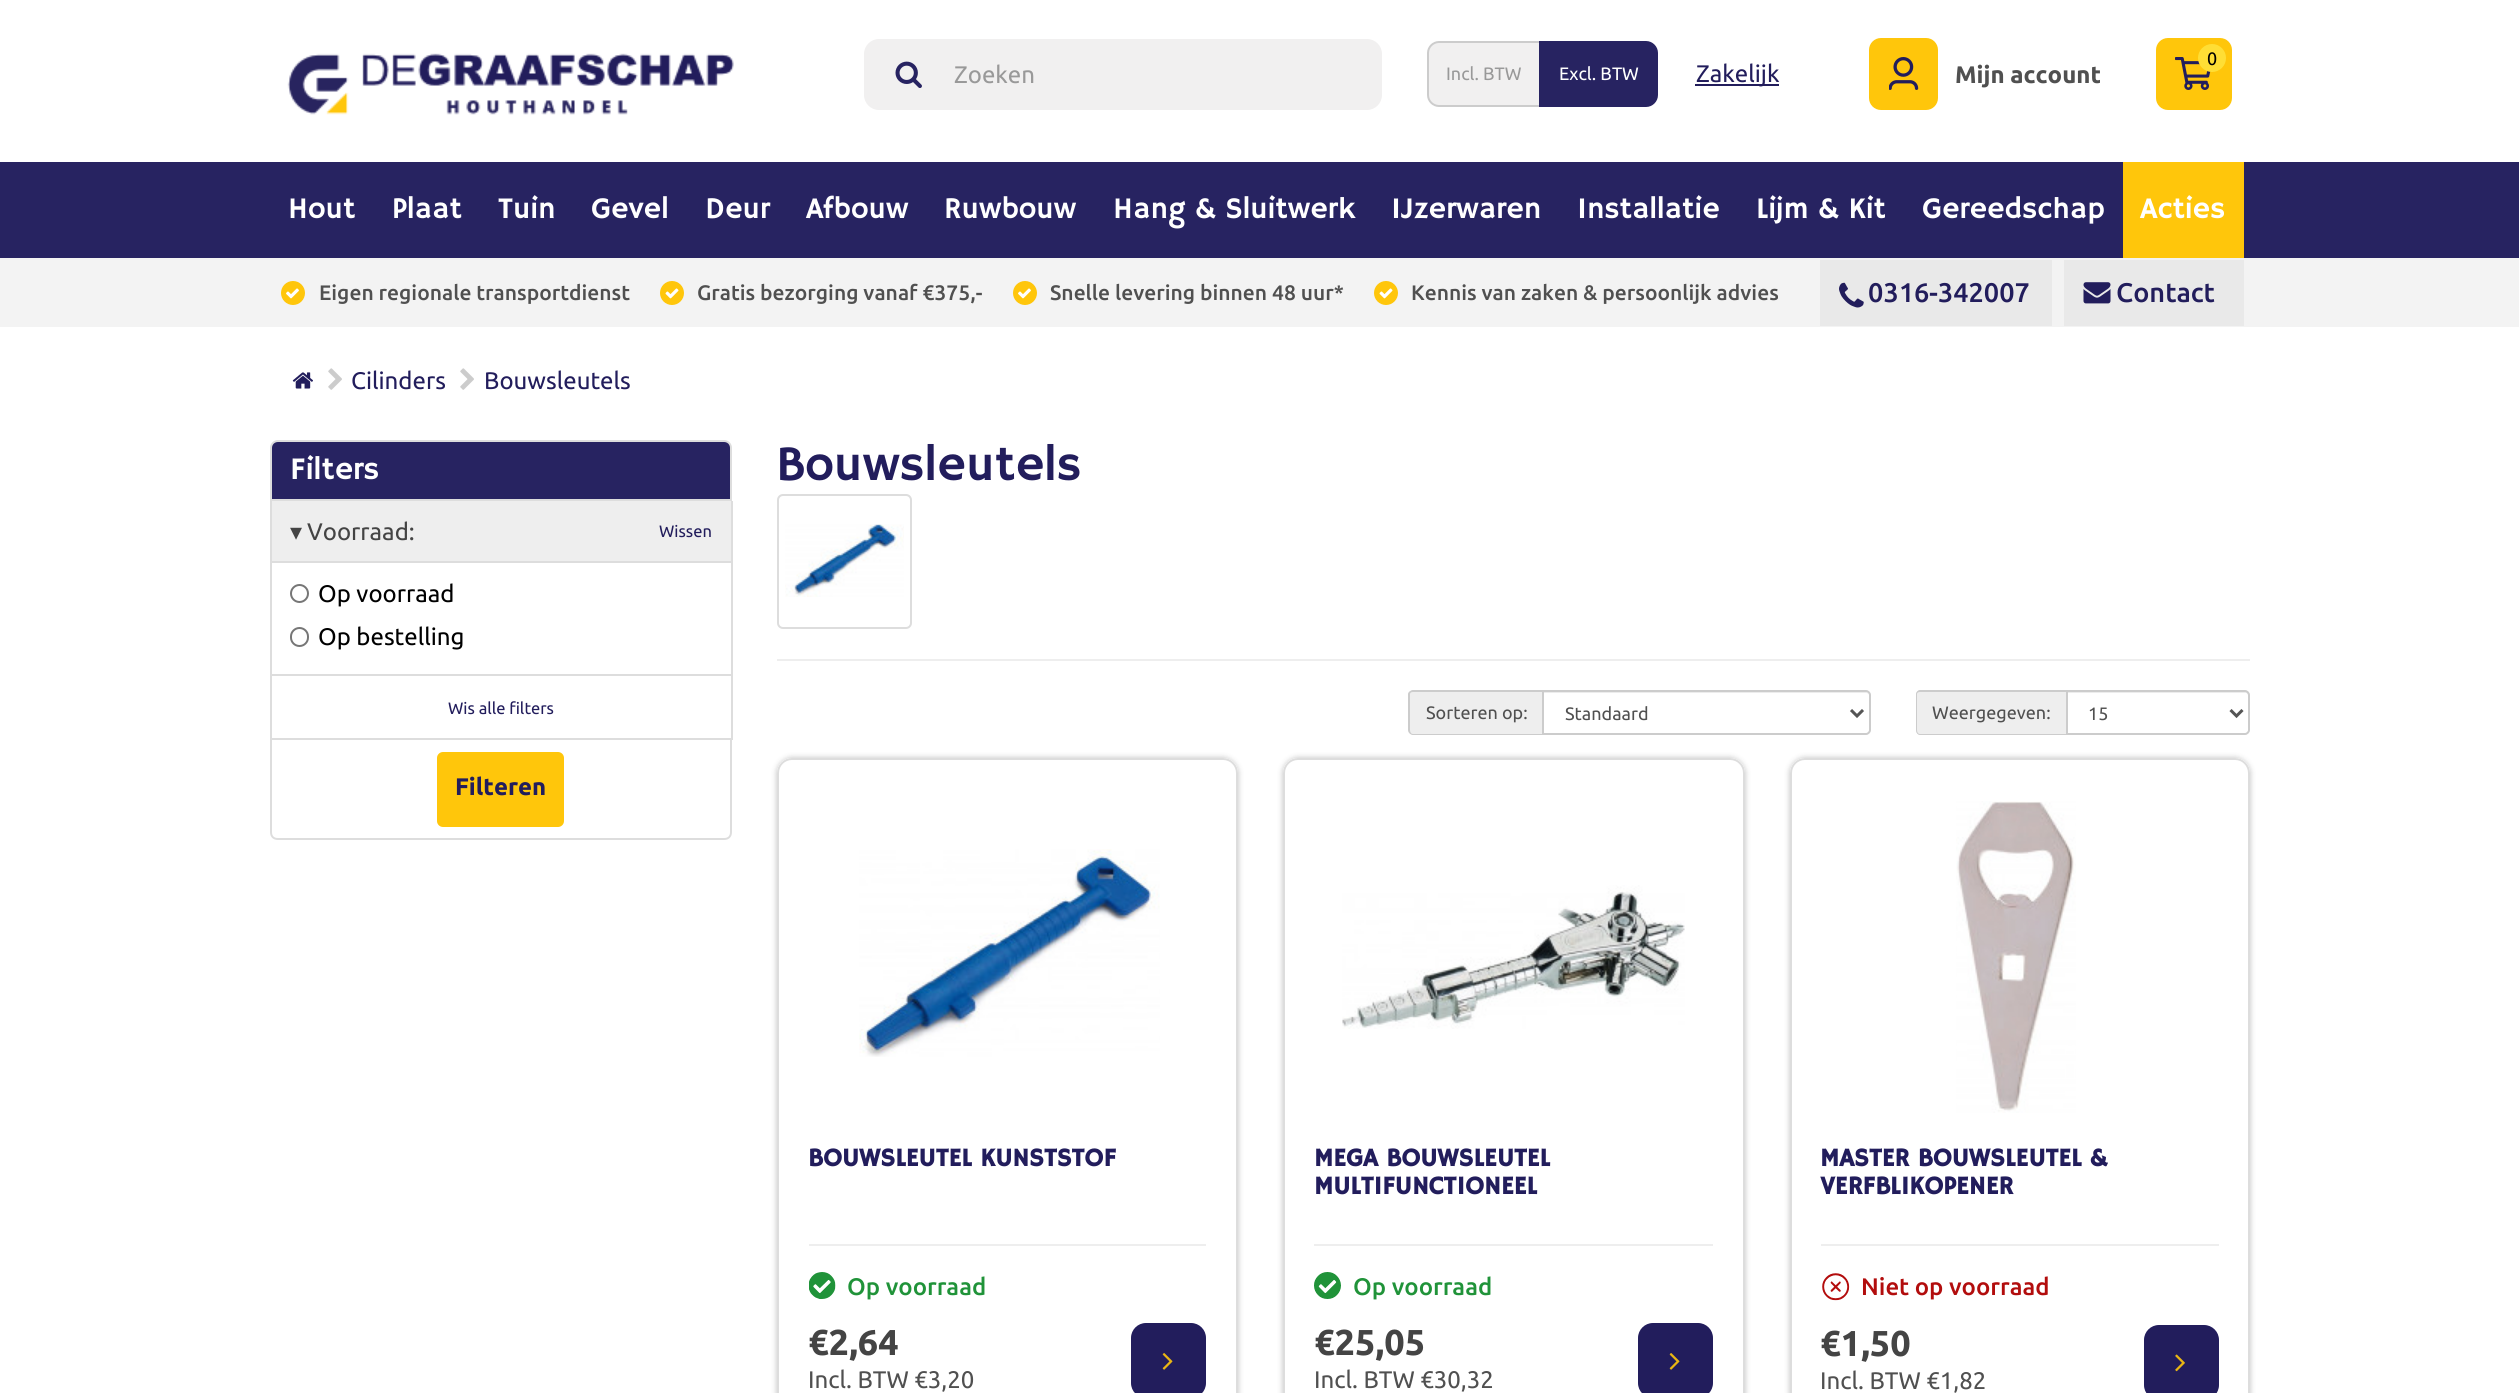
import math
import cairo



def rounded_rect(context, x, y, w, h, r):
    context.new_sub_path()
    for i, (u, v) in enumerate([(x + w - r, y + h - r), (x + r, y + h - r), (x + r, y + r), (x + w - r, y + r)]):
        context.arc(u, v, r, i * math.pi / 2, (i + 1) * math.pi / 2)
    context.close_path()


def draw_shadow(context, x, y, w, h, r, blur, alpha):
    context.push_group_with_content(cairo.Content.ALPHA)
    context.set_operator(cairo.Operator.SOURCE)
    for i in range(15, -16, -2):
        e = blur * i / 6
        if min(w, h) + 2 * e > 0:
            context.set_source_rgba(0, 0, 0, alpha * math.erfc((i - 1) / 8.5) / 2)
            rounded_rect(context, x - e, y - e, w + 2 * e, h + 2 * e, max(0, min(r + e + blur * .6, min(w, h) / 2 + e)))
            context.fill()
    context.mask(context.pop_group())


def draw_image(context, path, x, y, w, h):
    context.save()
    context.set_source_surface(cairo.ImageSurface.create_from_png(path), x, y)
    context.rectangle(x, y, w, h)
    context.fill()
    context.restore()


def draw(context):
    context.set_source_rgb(1, 1, 1)
    context.paint()
    draw_image(context, "images/1.png", 287, 53, 447, 62)
    context.set_source_rgb(241 / 255, 240 / 255, 240 / 255)
    rounded_rect(context, 864, 39, 518, 71, 15)
    context.fill()
    draw_image(context, "images/2.png", 895, 61, 27, 27)
    context.new_path()
    context.move_to(1439, 42)
    context.line_to(1540, 42)
    context.line_to(1540, 106)
    context.line_to(1439, 106)
    context.curve_to(1433, 106, 1428, 101, 1428, 95)
    context.line_to(1428, 53)
    context.curve_to(1428, 47, 1433, 42, 1439, 42)
    context.close_path()
    context.fill_preserve()
    context.set_source_rgb(204 / 255, 204 / 255, 204 / 255)
    context.stroke()
    context.set_source_rgb(39 / 255, 35 / 255, 97 / 255)
    context.new_path()
    context.move_to(1540, 42)
    context.line_to(1646, 42)
    context.curve_to(1652, 42, 1657, 47, 1657, 53)
    context.line_to(1657, 95)
    context.curve_to(1657, 101, 1652, 106, 1646, 106)
    context.line_to(1540, 106)
    context.close_path()
    context.fill_preserve()
    context.stroke()
    context.set_source_rgb(34 / 255, 29 / 255, 92 / 255)
    context.rectangle(1695, 84, 84, 2)
    context.fill()
    context.set_source_rgb(1, 198 / 255, 11 / 255)
    rounded_rect(context, 2156, 38, 76, 72, 12)
    context.fill()
    draw_image(context, "images/3.png", 2175, 57, 36, 33)
    context.set_source_rgb(1, 222 / 255, 53 / 255)
    context.arc(2212, 58, 14, 0, 2 * math.pi)
    context.fill()
    context.set_source_rgb(1, 198 / 255, 11 / 255)
    rounded_rect(context, 1869, 38, 69, 72, 12)
    context.fill()
    draw_image(context, "images/4.png", 1889, 57, 30, 33)
    context.set_source_rgb(39 / 255, 35 / 255, 97 / 255)
    context.rectangle(0, 162, 2519, 96)
    context.fill()
    context.set_source_rgb(1, 198 / 255, 11 / 255)
    context.rectangle(2123, 162, 121, 96)
    context.fill()
    context.set_source_rgb(243 / 255, 243 / 255, 243 / 255)
    context.rectangle(0, 258, 2519, 69)
    context.fill()
    context.set_source_rgb(1, 198 / 255, 11 / 255)
    context.arc(293, 293, 12, 0, 2 * math.pi)
    context.fill()
    draw_image(context, "images/5.png", 286, 288, 13, 11)
    context.arc(672, 293, 12, 0, 2 * math.pi)
    context.fill()
    draw_image(context, "images/6.png", 665, 288, 14, 11)
    context.arc(1025, 293, 12, 0, 2 * math.pi)
    context.fill()
    draw_image(context, "images/5.png", 1018, 288, 13, 11)
    context.arc(1386, 293, 12, 0, 2 * math.pi)
    context.fill()
    draw_image(context, "images/6.png", 1379, 288, 14, 11)
    context.set_source_rgb(233 / 255, 233 / 255, 233 / 255)
    context.rectangle(1820, 260, 232, 66)
    context.fill()
    draw_image(context, "images/7.png", 1839, 282, 25, 26)
    context.rectangle(2064, 260, 180, 66)
    context.fill()
    draw_image(context, "images/8.png", 2083, 282, 28, 22)
    draw_image(context, "images/9.png", 292, 372, 21, 17)
    draw_image(context, "images/10.png", 328, 368, 14, 22)
    draw_image(context, "images/10.png", 460, 368, 14, 22)
    context.set_source_rgb(39 / 255, 35 / 255, 97 / 255)
    context.new_path()
    context.move_to(278, 441)
    context.line_to(724, 441)
    context.curve_to(728, 441, 731, 444, 731, 448)
    context.line_to(731, 500)
    context.line_to(271, 500)
    context.line_to(271, 448)
    context.curve_to(271, 444, 274, 441, 278, 441)
    context.close_path()
    context.fill_preserve()
    context.set_source_rgb(221 / 255, 221 / 255, 221 / 255)
    context.stroke()
    context.set_source_rgb(238 / 255, 238 / 255, 238 / 255)
    context.rectangle(272, 501, 459, 60)
    context.fill()
    context.set_source_rgb(221 / 255, 221 / 255, 221 / 255)
    context.rectangle(731, 501, 2, 174)
    context.fill()
    context.rectangle(270, 561, 462, 2)
    context.fill()
    context.rectangle(270, 501, 2, 62)
    context.fill()
    context.rectangle(270, 674, 462, 2)
    context.fill()
    context.rectangle(270, 563, 2, 112)
    context.fill()
    context.arc(299.5, 593.5, 8.5, 0, 2 * math.pi)
    context.set_source_rgb(118 / 255, 118 / 255, 118 / 255)
    context.stroke()
    rounded_rect(context, 291, 628, 17, 18, 8.5)
    context.stroke()
    context.set_source_rgb(221 / 255, 221 / 255, 221 / 255)
    context.rectangle(731, 675, 2, 65)
    context.fill()
    context.rectangle(270, 738, 462, 2)
    context.fill()
    context.rectangle(270, 675, 2, 65)
    context.fill()
    context.set_fill_rule(cairo.FillRule.EVEN_ODD)
    context.new_path()
    context.move_to(270, 740)
    context.line_to(732, 740)
    context.line_to(732, 832)
    context.curve_to(732, 837, 729, 840, 724, 840)
    context.line_to(278, 840)
    context.curve_to(273, 840, 270, 837, 270, 832)
    context.close_path()
    context.move_to(272, 740)
    context.line_to(730, 740)
    context.line_to(730, 832)
    context.curve_to(730, 836, 728, 838, 724, 838)
    context.line_to(278, 838)
    context.curve_to(274, 838, 272, 836, 272, 832)
    context.close_path()
    context.fill()
    context.set_source_rgb(1, 198 / 255, 11 / 255)
    rounded_rect(context, 437, 752, 127, 75, 6)
    context.fill()
    rounded_rect(context, 778, 495, 133, 133, 5)
    context.set_source_rgb(221 / 255, 221 / 255, 221 / 255)
    context.stroke()
    draw_image(context, "images/11.png", 785, 524, 119, 73)
    context.set_source_rgb(238 / 255, 238 / 255, 238 / 255)
    context.rectangle(777, 659, 1473, 2)
    context.fill()
    context.new_path()
    context.move_to(1414, 690)
    context.line_to(1542, 690)
    context.line_to(1542, 735)
    context.line_to(1414, 735)
    context.curve_to(1411, 735, 1409, 733, 1409, 730)
    context.line_to(1409, 695)
    context.curve_to(1409, 692, 1411, 690, 1414, 690)
    context.close_path()
    context.fill()
    context.set_source_rgb(204 / 255, 204 / 255, 204 / 255)
    context.new_path()
    context.move_to(1413, 690)
    context.line_to(1542, 690)
    context.line_to(1542, 735)
    context.line_to(1413, 735)
    context.curve_to(1411, 735, 1408, 733, 1408, 730)
    context.line_to(1408, 694)
    context.curve_to(1408, 692, 1411, 690, 1413, 690)
    context.close_path()
    context.move_to(1413, 692)
    context.line_to(1542, 692)
    context.line_to(1542, 734)
    context.line_to(1413, 734)
    context.curve_to(1411, 734, 1410, 732, 1410, 730)
    context.line_to(1410, 694)
    context.curve_to(1410, 693, 1411, 692, 1413, 692)
    context.close_path()
    context.fill()
    context.set_source_rgb(236 / 255, 236 / 255, 236 / 255)
    context.set_fill_rule(cairo.FillRule.WINDING)
    context.new_path()
    context.move_to(1544, 693)
    context.line_to(1866, 693)
    context.curve_to(1868, 693, 1869, 694, 1869, 696)
    context.curve_to(1869, 694, 1868, 692, 1866, 692)
    context.line_to(1544, 692)
    context.close_path()
    context.fill()
    context.new_path()
    context.move_to(1543, 691)
    context.line_to(1866, 691)
    context.curve_to(1868, 691, 1870, 693, 1870, 695)
    context.line_to(1870, 730)
    context.curve_to(1870, 732, 1868, 734, 1866, 734)
    context.line_to(1543, 734)
    context.close_path()
    context.set_source_rgb(204 / 255, 204 / 255, 204 / 255)
    context.stroke()
    context.new_path()
    context.move_to(1851, 710)
    context.line_to(1857, 716)
    context.line_to(1863, 710)
    context.set_source_rgb(85 / 255, 85 / 255, 85 / 255)
    context.set_line_width(3)
    context.stroke()
    context.set_source_rgb(238 / 255, 238 / 255, 238 / 255)
    context.new_path()
    context.move_to(1921, 690)
    context.line_to(2066, 690)
    context.line_to(2066, 735)
    context.line_to(1921, 735)
    context.curve_to(1918, 735, 1916, 733, 1916, 730)
    context.line_to(1916, 695)
    context.curve_to(1916, 692, 1918, 690, 1921, 690)
    context.close_path()
    context.fill()
    context.set_source_rgb(204 / 255, 204 / 255, 204 / 255)
    context.set_fill_rule(cairo.FillRule.EVEN_ODD)
    context.new_path()
    context.move_to(1920, 690)
    context.line_to(2066, 690)
    context.line_to(2066, 735)
    context.line_to(1920, 735)
    context.curve_to(1918, 735, 1916, 733, 1916, 730)
    context.line_to(1916, 694)
    context.curve_to(1916, 692, 1918, 690, 1920, 690)
    context.close_path()
    context.move_to(1920, 692)
    context.line_to(2066, 692)
    context.line_to(2066, 734)
    context.line_to(1920, 734)
    context.curve_to(1918, 734, 1917, 732, 1917, 730)
    context.line_to(1917, 694)
    context.curve_to(1917, 693, 1918, 692, 1920, 692)
    context.close_path()
    context.fill()
    context.set_source_rgb(236 / 255, 236 / 255, 236 / 255)
    context.set_fill_rule(cairo.FillRule.WINDING)
    context.new_path()
    context.move_to(2067, 693)
    context.line_to(2246, 693)
    context.curve_to(2247, 693, 2248, 694, 2248, 696)
    context.line_to(2248, 733)
    context.curve_to(2249, 733, 2249, 732, 2249, 731)
    context.line_to(2249, 695)
    context.curve_to(2249, 693, 2248, 692, 2246, 692)
    context.line_to(2067, 692)
    context.close_path()
    context.fill()
    context.new_path()
    context.move_to(2067, 691)
    context.line_to(2245, 691)
    context.curve_to(2247, 691, 2249, 693, 2249, 695)
    context.line_to(2249, 730)
    context.curve_to(2249, 732, 2247, 734, 2245, 734)
    context.line_to(2067, 734)
    context.close_path()
    context.set_source_rgb(204 / 255, 204 / 255, 204 / 255)
    context.set_line_width(2)
    context.stroke()
    context.new_path()
    context.move_to(2230.5, 710)
    context.line_to(2236.5, 716)
    context.line_to(2242.5, 710)
    context.set_source_rgb(85 / 255, 85 / 255, 85 / 255)
    context.set_line_width(3)
    context.stroke()
    context.save()
    context.set_fill_rule(cairo.FillRule.EVEN_ODD)
    context.new_path()
    context.move_to(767, 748)
    context.line_to(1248, 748)
    context.line_to(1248, 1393)
    context.line_to(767, 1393)
    context.close_path()
    context.move_to(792, 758)
    context.line_to(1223, 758)
    context.curve_to(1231.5, 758, 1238, 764.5, 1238, 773)
    context.line_to(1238, 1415)
    context.curve_to(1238, 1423.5, 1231.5, 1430, 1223, 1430)
    context.line_to(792, 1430)
    context.curve_to(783.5, 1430, 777, 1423.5, 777, 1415)
    context.line_to(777, 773)
    context.curve_to(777, 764.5, 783.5, 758, 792, 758)
    context.close_path()
    context.clip()
    context.set_source_rgb(0, 0, 0)
    draw_shadow(context, 777, 758, 461, 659, 15, 3, 0.25)
    context.restore()
    rounded_rect(context, 778, 759, 459, 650, 14)
    context.set_source_rgb(221 / 255, 221 / 255, 221 / 255)
    context.set_line_width(2)
    context.stroke()
    draw_image(context, "images/12.png", 859, 849, 301, 208)
    context.set_source_rgb(238 / 255, 238 / 255, 238 / 255)
    context.rectangle(809, 1244, 397, 2)
    context.fill()
    draw_image(context, "images/13.png", 809, 1272, 27, 27)
    context.set_source_rgb(34 / 255, 29 / 255, 92 / 255)
    rounded_rect(context, 1131, 1323, 75, 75, 15)
    context.fill()
    draw_image(context, "images/14.png", 1162, 1353, 11, 17)
    context.save()
    context.set_fill_rule(cairo.FillRule.EVEN_ODD)
    context.new_path()
    context.move_to(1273, 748)
    context.line_to(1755, 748)
    context.line_to(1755, 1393)
    context.line_to(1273, 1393)
    context.close_path()
    context.move_to(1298, 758)
    context.line_to(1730, 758)
    context.curve_to(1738.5, 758, 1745, 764.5, 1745, 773)
    context.line_to(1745, 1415)
    context.curve_to(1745, 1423.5, 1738.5, 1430, 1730, 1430)
    context.line_to(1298, 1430)
    context.curve_to(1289.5, 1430, 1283, 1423.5, 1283, 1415)
    context.line_to(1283, 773)
    context.curve_to(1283, 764.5, 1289.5, 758, 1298, 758)
    context.close_path()
    context.clip()
    context.set_source_rgb(0, 0, 0)
    draw_shadow(context, 1283, 758, 462, 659, 15, 3, 0.25)
    context.restore()
    rounded_rect(context, 1284, 759, 460, 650, 14)
    context.set_source_rgb(221 / 255, 221 / 255, 221 / 255)
    context.stroke()
    draw_image(context, "images/15.png", 1342, 885, 343, 144)
    context.set_source_rgb(238 / 255, 238 / 255, 238 / 255)
    context.rectangle(1314, 1244, 399, 2)
    context.fill()
    draw_image(context, "images/16.png", 1314, 1272, 27, 27)
    context.set_source_rgb(34 / 255, 29 / 255, 92 / 255)
    rounded_rect(context, 1638, 1323, 75, 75, 15)
    context.fill()
    draw_image(context, "images/14.png", 1669, 1353, 11, 17)
    context.save()
    context.set_fill_rule(cairo.FillRule.EVEN_ODD)
    context.new_path()
    context.move_to(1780, 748)
    context.line_to(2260, 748)
    context.line_to(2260, 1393)
    context.line_to(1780, 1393)
    context.close_path()
    context.move_to(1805, 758)
    context.line_to(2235, 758)
    context.curve_to(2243.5, 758, 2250, 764.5, 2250, 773)
    context.line_to(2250, 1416)
    context.curve_to(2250, 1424.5, 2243.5, 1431, 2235, 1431)
    context.line_to(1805, 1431)
    context.curve_to(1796.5, 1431, 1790, 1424.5, 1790, 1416)
    context.line_to(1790, 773)
    context.curve_to(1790, 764.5, 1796.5, 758, 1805, 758)
    context.close_path()
    context.clip()
    context.set_source_rgb(0, 0, 0)
    draw_shadow(context, 1790, 758, 460, 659, 15, 3, 0.25)
    context.restore()
    rounded_rect(context, 1791, 759, 458, 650, 14)
    context.set_source_rgb(221 / 255, 221 / 255, 221 / 255)
    context.stroke()
    draw_image(context, "images/17.png", 1956, 801, 120, 312)
    context.set_source_rgb(238 / 255, 238 / 255, 238 / 255)
    context.rectangle(1821, 1244, 398, 2)
    context.fill()
    draw_image(context, "images/18.png", 1822, 1273, 28, 28)
    context.set_source_rgb(34 / 255, 29 / 255, 92 / 255)
    rounded_rect(context, 2144, 1325, 75, 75, 15)
    context.fill()
    draw_image(context, "images/19.png", 2175, 1354, 10, 18)
    context.select_font_face("Ubuntu")
    context.set_font_size(24)
    context.set_source_rgb(153 / 255, 153 / 255, 153 / 255)
    context.move_to(954, 83)
    context.show_text("Zoeken")
    context.set_font_size(18)
    context.move_to(1446, 80)
    context.show_text("Incl. BTW")
    context.set_source_rgb(1, 1, 1)
    context.move_to(1559, 80)
    context.show_text("Excl. BTW")
    context.set_font_size(24)
    context.set_source_rgb(34 / 255, 29 / 255, 92 / 255)
    context.move_to(1696, 82)
    context.show_text("Zakelijk")
    context.set_font_size(18)
    context.set_source_rgb(0, 0, 0)
    context.move_to(2207, 65)
    context.show_text("0")
    context.select_font_face("Ubuntu", cairo.FontSlant.NORMAL, cairo.FontWeight.BOLD)
    context.set_font_size(24)
    context.set_source_rgb(80 / 255, 80 / 255, 80 / 255)
    context.move_to(1955, 83)
    context.show_text("Mijn account")
    context.select_font_face("Hammersmith One")
    context.set_font_size(30)
    context.set_source_rgb(1, 1, 1)
    context.move_to(288, 218)
    context.show_text("Hout")
    context.move_to(392, 218)
    context.show_text("Plaat")
    context.move_to(498, 218)
    context.show_text("Tuin")
    context.move_to(591, 218)
    context.show_text("Gevel")
    context.move_to(705, 218)
    context.show_text("Deur")
    context.move_to(806, 218)
    context.show_text("Afbouw")
    context.move_to(944, 218)
    context.show_text("Ruwbouw")
    context.move_to(1113, 218)
    context.show_text("Hang & Sluitwerk")
    context.move_to(1391, 218)
    context.show_text("IJzerwaren")
    context.move_to(1577, 218)
    context.show_text("Installatie")
    context.move_to(1756, 218)
    context.show_text("Lijm & Kit")
    context.move_to(1922, 218)
    context.show_text("Gereedschap")
    context.move_to(2140, 218)
    context.show_text("Acties")
    context.select_font_face("Ubuntu Medium")
    context.set_font_size(21)
    context.set_source_rgb(80 / 255, 80 / 255, 80 / 255)
    context.move_to(319, 300)
    context.show_text("Eigen regionale transportdienst")
    context.move_to(697, 300)
    context.show_text("Gratis bezorging vanaf €375,-")
    context.move_to(1050, 300)
    context.show_text("Snelle levering binnen 48 uur*")
    context.move_to(1411, 300)
    context.show_text("Kennis van zaken & persoonlijk advies")
    context.set_font_size(27)
    context.set_source_rgb(34 / 255, 29 / 255, 92 / 255)
    context.move_to(1868, 302)
    context.show_text("0316-342007")
    context.move_to(2116, 302)
    context.show_text("Contact")
    context.select_font_face("Ubuntu")
    context.set_font_size(24)
    context.move_to(351, 389)
    context.show_text("Cilinders")
    context.move_to(484, 389)
    context.show_text("Bouwsleutels")
    context.select_font_face("Hammersmith One")
    context.set_font_size(31.5)
    context.set_source_rgb(1, 1, 1)
    context.move_to(290, 479)
    context.show_text("Filters")
    context.select_font_face("DejaVu Sans")
    context.set_font_size(24)
    context.set_source_rgb(68 / 255, 68 / 255, 68 / 255)
    context.move_to(290, 540)
    context.show_text("▾")
    context.select_font_face("Ubuntu")
    context.move_to(307, 540)
    context.show_text("Voorraad:")
    context.set_font_size(16.5)
    context.set_source_rgb(34 / 255, 29 / 255, 92 / 255)
    context.move_to(659, 537)
    context.show_text("Wissen")
    context.set_font_size(24)
    context.set_source_rgb(0, 0, 0)
    context.move_to(318, 602)
    context.show_text("Op voorraad")
    context.move_to(318, 645)
    context.show_text("Op bestelling")
    context.set_font_size(16.5)
    context.set_source_rgb(34 / 255, 29 / 255, 92 / 255)
    context.move_to(448, 714)
    context.show_text("Wis alle filters")
    context.select_font_face("Ubuntu", cairo.FontSlant.NORMAL, cairo.FontWeight.BOLD)
    context.set_font_size(24)
    context.move_to(455, 795)
    context.show_text("Filteren")
    context.select_font_face("Hammersmith One")
    context.set_font_size(49.5)
    context.move_to(776, 480)
    context.show_text("Bouwsleutels")
    context.select_font_face("Ubuntu")
    context.set_font_size(18)
    context.set_source_rgb(80 / 255, 80 / 255, 80 / 255)
    context.move_to(1426, 719)
    context.show_text("Sorteren op:")
    context.move_to(1565, 720)
    context.show_text("Standaard")
    context.move_to(1932, 719)
    context.show_text("Weergegeven:")
    context.move_to(2088, 720)
    context.show_text("15")
    context.select_font_face("Hammersmith One", cairo.FontSlant.NORMAL, cairo.FontWeight.BOLD)
    context.set_font_size(25.5)
    context.set_source_rgb(34 / 255, 29 / 255, 92 / 255)
    context.move_to(808, 1166)
    context.show_text("BOUWSLEUTEL KUNSTSTOF")
    context.select_font_face("Ubuntu Medium")
    context.set_font_size(24)
    context.set_source_rgb(32 / 255, 147 / 255, 57 / 255)
    context.move_to(847, 1295)
    context.show_text("Op voorraad")
    context.select_font_face("Ubuntu", cairo.FontSlant.NORMAL, cairo.FontWeight.BOLD)
    context.set_font_size(36)
    context.set_source_rgb(68 / 255, 68 / 255, 68 / 255)
    context.move_to(808, 1355)
    context.show_text("€2,64")
    context.select_font_face("Ubuntu")
    context.set_font_size(24)
    context.set_source_rgb(80 / 255, 80 / 255, 80 / 255)
    context.move_to(808, 1388)
    context.show_text("Incl. BTW €3,20")
    context.select_font_face("Hammersmith One", cairo.FontSlant.NORMAL, cairo.FontWeight.BOLD)
    context.set_font_size(25.5)
    context.set_source_rgb(34 / 255, 29 / 255, 92 / 255)
    context.move_to(1314, 1166)
    context.show_text("MEGA BOUWSLEUTEL")
    context.move_to(1314, 1194)
    context.show_text("MULTIFUNCTIONEEL")
    context.select_font_face("Ubuntu Medium")
    context.set_font_size(24)
    context.set_source_rgb(32 / 255, 147 / 255, 57 / 255)
    context.move_to(1353, 1295)
    context.show_text("Op voorraad")
    context.select_font_face("Ubuntu", cairo.FontSlant.NORMAL, cairo.FontWeight.BOLD)
    context.set_font_size(36)
    context.set_source_rgb(68 / 255, 68 / 255, 68 / 255)
    context.move_to(1314, 1355)
    context.show_text("€25,05")
    context.select_font_face("Ubuntu")
    context.set_font_size(24)
    context.set_source_rgb(80 / 255, 80 / 255, 80 / 255)
    context.move_to(1314, 1388)
    context.show_text("Incl. BTW €30,32")
    context.select_font_face("Hammersmith One", cairo.FontSlant.NORMAL, cairo.FontWeight.BOLD)
    context.set_font_size(25.5)
    context.set_source_rgb(34 / 255, 29 / 255, 92 / 255)
    context.move_to(1820, 1166)
    context.show_text("MASTER BOUWSLEUTEL &")
    context.move_to(1820, 1194)
    context.show_text("VERFBLIKOPENER")
    context.select_font_face("Ubuntu Medium")
    context.set_font_size(24)
    context.set_source_rgb(178 / 255, 13 / 255, 13 / 255)
    context.move_to(1861, 1295)
    context.show_text("Niet op voorraad")
    context.select_font_face("Ubuntu", cairo.FontSlant.NORMAL, cairo.FontWeight.BOLD)
    context.set_font_size(36)
    context.set_source_rgb(68 / 255, 68 / 255, 68 / 255)
    context.move_to(1820, 1356)
    context.show_text("€1,50")
    context.select_font_face("Ubuntu")
    context.set_font_size(24)
    context.set_source_rgb(80 / 255, 80 / 255, 80 / 255)
    context.move_to(1820, 1389)
    context.show_text("Incl. BTW €1,82")


surface = cairo.ImageSurface(cairo.Format.RGB24, 2519, 1393)
context = cairo.Context(surface)
options = cairo.FontOptions()
options.set_hint_metrics(cairo.HintMetrics.OFF)
options.set_hint_style(cairo.HintStyle.NONE)
context.set_font_options(options)
context.set_miter_limit(4)
draw(context)
surface.write_to_png("out.png")
